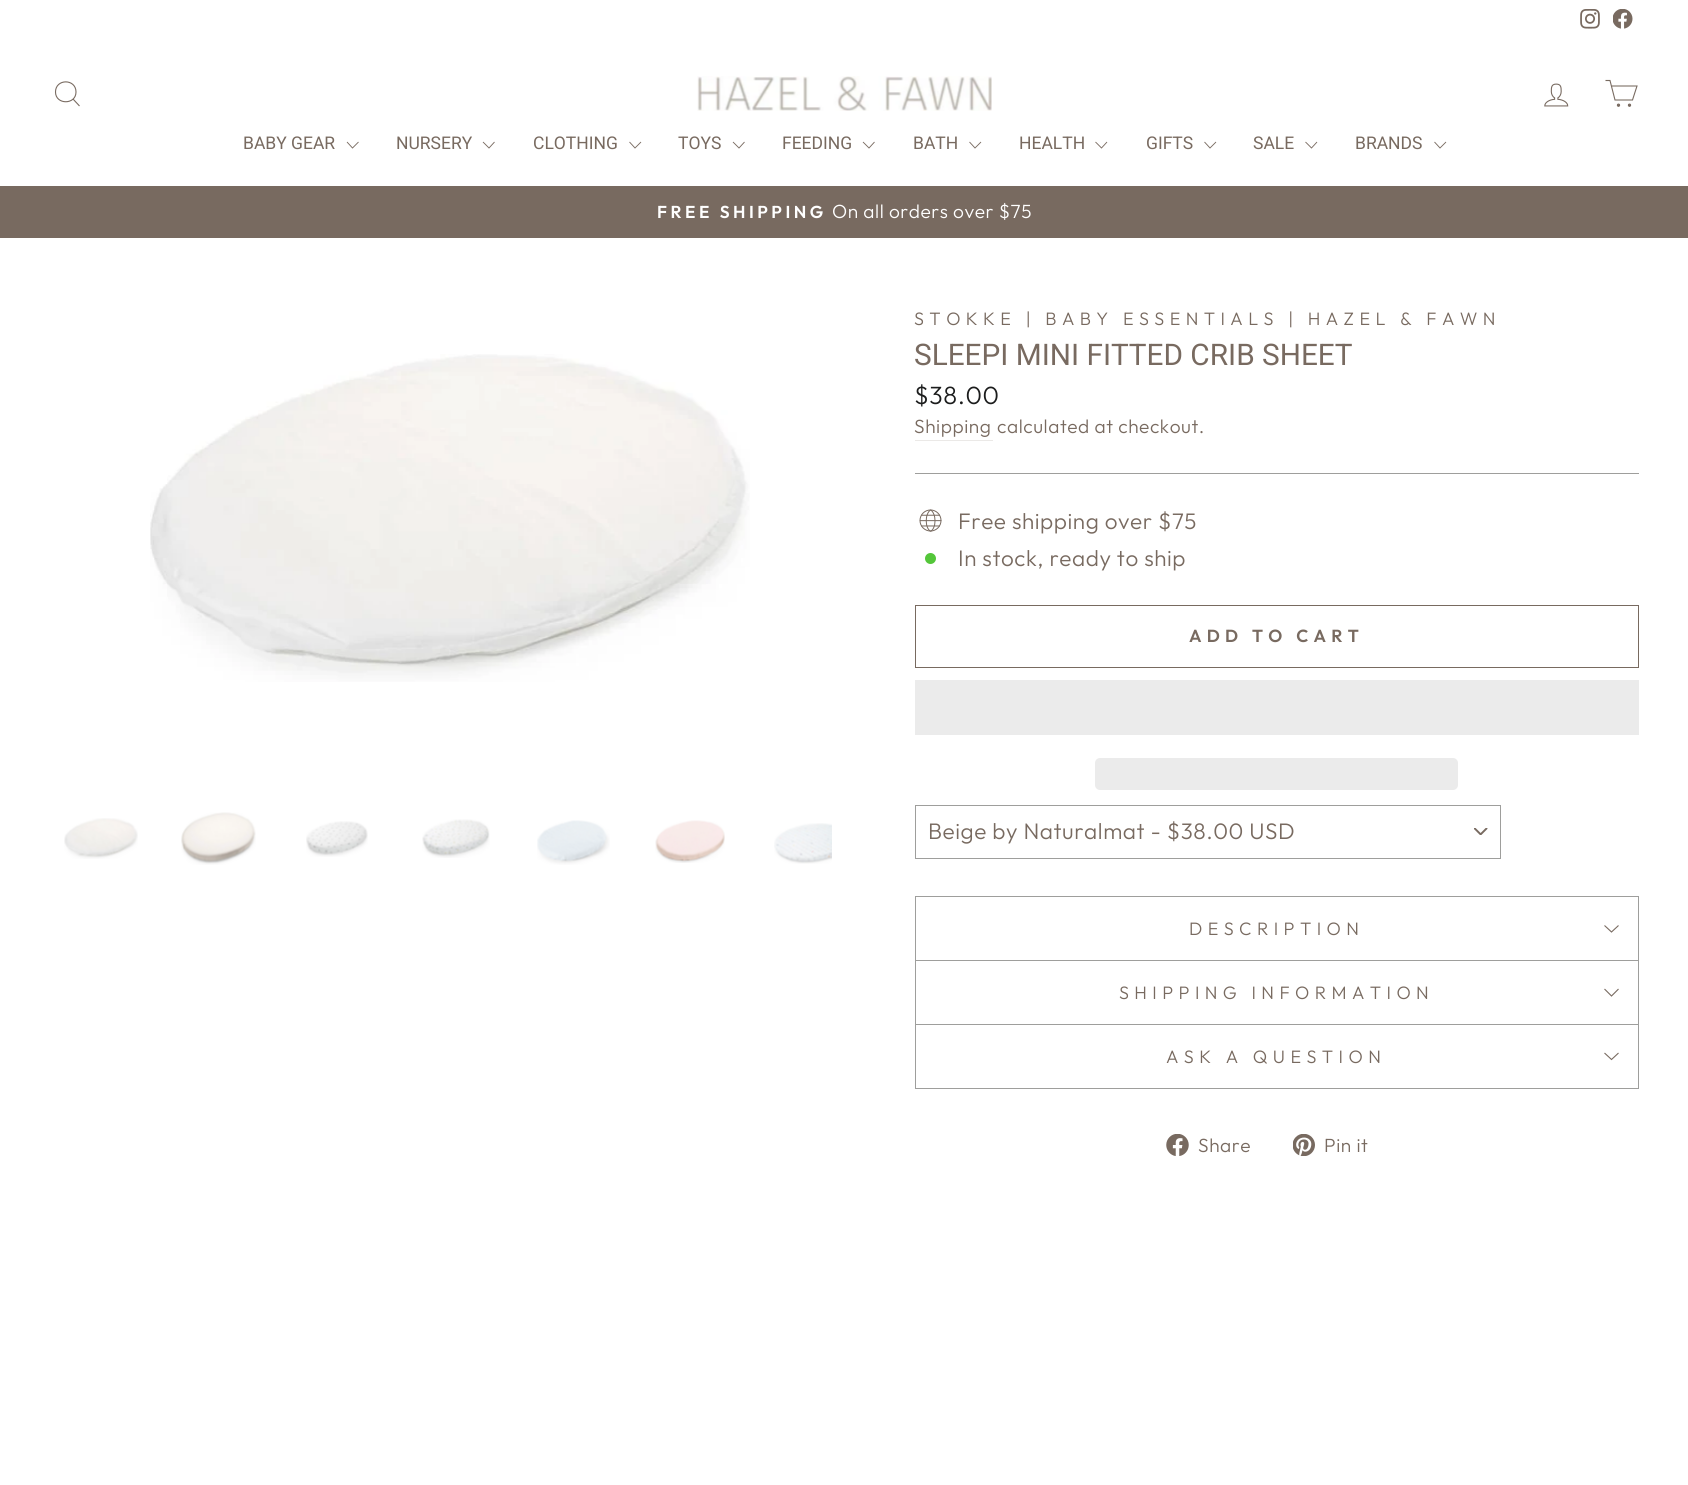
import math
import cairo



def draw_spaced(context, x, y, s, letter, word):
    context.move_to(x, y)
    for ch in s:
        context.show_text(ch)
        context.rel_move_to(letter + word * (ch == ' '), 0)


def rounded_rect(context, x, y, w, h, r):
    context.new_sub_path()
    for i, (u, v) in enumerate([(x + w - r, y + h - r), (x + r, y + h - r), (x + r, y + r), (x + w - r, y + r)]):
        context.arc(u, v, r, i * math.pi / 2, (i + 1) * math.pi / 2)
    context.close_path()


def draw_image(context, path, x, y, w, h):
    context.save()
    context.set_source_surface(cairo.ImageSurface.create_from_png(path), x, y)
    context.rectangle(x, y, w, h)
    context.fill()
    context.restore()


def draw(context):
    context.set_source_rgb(1, 1, 1)
    context.paint()
    draw_image(context, "images/1.png", 1580, 9, 20, 20)
    draw_image(context, "images/2.png", 1613, 9, 20, 20)
    context.new_path()
    context.move_to(76, 92)
    context.curve_to(76, 105, 55.5, 105, 55.5, 92)
    context.curve_to(55.5, 78.5, 76, 78.5, 76, 92)
    context.close_path()
    context.move_to(79.5, 106)
    context.line_to(73, 99)
    context.set_source_rgb(120 / 255, 106 / 255, 96 / 255)
    context.set_line_width(1.1)
    context.stroke()
    draw_image(context, "images/3.png", 697, 76, 295, 35)
    draw_image(context, "images/4.png", 1544, 83, 25, 24)
    context.new_path()
    context.move_to(1611.5, 86)
    context.line_to(1637, 86)
    context.line_to(1632.5, 100)
    context.line_to(1615, 100)
    context.line_to(1610, 80.5)
    context.line_to(1605.5, 80.5)
    context.stroke()
    context.arc(1618.5, 105.2, 1.1, 0, 2 * math.pi)
    context.fill_preserve()
    context.stroke()
    context.arc(1629.5, 105.2, 1.1, 0, 2 * math.pi)
    context.fill_preserve()
    context.stroke()
    context.new_path()
    context.move_to(347, 142)
    context.line_to(352.5, 148)
    context.line_to(358.5, 142)
    context.set_line_width(0.9)
    context.stroke()
    context.new_path()
    context.move_to(483, 142)
    context.line_to(489, 148)
    context.line_to(494.5, 142)
    context.stroke()
    context.new_path()
    context.move_to(629.5, 142)
    context.line_to(635, 148)
    context.line_to(641, 142)
    context.stroke()
    context.new_path()
    context.move_to(733, 142)
    context.line_to(739, 148)
    context.line_to(744.5, 142)
    context.stroke()
    context.new_path()
    context.move_to(863, 142)
    context.line_to(869, 148)
    context.line_to(874.5, 142)
    context.stroke()
    context.new_path()
    context.move_to(969.5, 142)
    context.line_to(975, 148)
    context.line_to(981, 142)
    context.stroke()
    context.new_path()
    context.move_to(1095.5, 142)
    context.line_to(1101.5, 148)
    context.line_to(1107, 142)
    context.stroke()
    context.new_path()
    context.move_to(1204.5, 142)
    context.line_to(1210, 148)
    context.line_to(1216, 142)
    context.stroke()
    context.new_path()
    context.move_to(1305.5, 142)
    context.line_to(1311.5, 148)
    context.line_to(1317, 142)
    context.stroke()
    context.new_path()
    context.move_to(1434.5, 142)
    context.line_to(1440, 148)
    context.line_to(1446, 142)
    context.stroke()
    context.rectangle(0, 186, 1688, 52)
    context.fill()
    draw_image(context, "images/5.png", 150, 354, 600, 328)
    draw_image(context, "images/6.png", 64, 818, 74, 41)
    draw_image(context, "images/7.png", 181, 812, 75, 53)
    draw_image(context, "images/8.png", 306, 821, 62, 36)
    draw_image(context, "images/9.png", 422, 819, 68, 39)
    draw_image(context, "images/10.png", 537, 820, 73, 45)
    draw_image(context, "images/11.png", 655, 820, 70, 43)
    draw_image(context, "images/12.png", 774, 823, 58, 41)
    context.set_source_rgb(235 / 255, 233 / 255, 231 / 255)
    context.rectangle(915, 440, 78, 1)
    context.fill()
    context.set_source_rgb(158 / 255, 158 / 255, 156 / 255)
    context.rectangle(915, 473, 724, 1)
    context.fill()
    draw_image(context, "images/13.png", 919, 509, 23, 23)
    context.set_source_rgb(84 / 255, 198 / 255, 58 / 255)
    context.arc(930.5, 558.5, 5.5, 0, 2 * math.pi)
    context.fill()
    context.rectangle(915.5, 605.5, 723, 62)
    context.set_source_rgb(120 / 255, 106 / 255, 96 / 255)
    context.set_line_width(1)
    context.stroke()
    context.set_source_rgb(235 / 255, 235 / 255, 235 / 255)
    context.rectangle(915, 680, 724, 55)
    context.fill()
    rounded_rect(context, 1095, 758, 363, 32, 5)
    context.fill()
    draw_image(context, "images/14.png", 1474, 828, 14, 7)
    context.rectangle(915.5, 805.5, 585, 53)
    context.set_source_rgb(158 / 255, 158 / 255, 156 / 255)
    context.stroke()
    context.rectangle(915, 960, 724, 1)
    context.fill()
    context.rectangle(915, 896, 724, 1)
    context.fill()
    context.rectangle(1638, 896, 1, 64)
    context.fill()
    context.rectangle(915, 896, 1, 64)
    context.fill()
    context.new_path()
    context.move_to(1604.5, 925.5)
    context.line_to(1611.5, 932)
    context.line_to(1618.5, 925.5)
    context.set_source_rgb(120 / 255, 106 / 255, 96 / 255)
    context.set_line_width(1.1)
    context.stroke()
    context.set_source_rgb(158 / 255, 158 / 255, 156 / 255)
    context.rectangle(915, 1024, 724, 1)
    context.fill()
    context.rectangle(1638, 961, 1, 63)
    context.fill()
    context.rectangle(915, 961, 1, 63)
    context.fill()
    context.new_path()
    context.move_to(1604.5, 989)
    context.line_to(1611.5, 996)
    context.line_to(1618.5, 989)
    context.set_source_rgb(120 / 255, 106 / 255, 96 / 255)
    context.stroke()
    context.set_source_rgb(158 / 255, 158 / 255, 156 / 255)
    context.rectangle(915, 1088, 724, 1)
    context.fill()
    context.rectangle(1638, 1025, 1, 63)
    context.fill()
    context.rectangle(915, 1025, 1, 63)
    context.fill()
    context.new_path()
    context.move_to(1604.5, 1053)
    context.line_to(1611.5, 1059.5)
    context.line_to(1618.5, 1053)
    context.set_source_rgb(120 / 255, 106 / 255, 96 / 255)
    context.stroke()
    draw_image(context, "images/15.png", 1166, 1134, 23, 22)
    draw_image(context, "images/16.png", 1293, 1134, 22, 22)
    context.select_font_face("Roboto")
    context.set_font_size(17.5)
    context.move_to(243, 149)
    context.show_text("BABY GEAR")
    context.move_to(396, 149)
    context.show_text("NURSERY")
    context.move_to(533, 149)
    context.show_text("CLOTHING")
    context.move_to(678, 149)
    context.show_text("TOYS")
    context.move_to(782, 149)
    context.show_text("FEEDING")
    context.move_to(913, 149)
    context.show_text("BATH")
    context.move_to(1019, 149)
    context.show_text("HEALTH")
    context.move_to(1146, 149)
    context.show_text("GIFTS")
    context.move_to(1253, 149)
    context.show_text("SALE")
    context.move_to(1355, 149)
    context.show_text("BRANDS")
    context.select_font_face("Outfit SemiBold")
    context.set_font_size(17.25)
    context.set_source_rgb(1, 1, 1)
    draw_spaced(context, 657, 218, "FREE SHIPPING", 3.5, 0)
    context.select_font_face("Outfit Light")
    context.set_font_size(19.1)
    draw_spaced(context, 832, 218, "On all orders over $75", 0.55, 0)
    context.set_font_size(18)
    context.set_source_rgb(120 / 255, 106 / 255, 96 / 255)
    draw_spaced(context, 914, 325, "STOKKE | BABY ESSENTIALS | HAZEL & FAWN", 5.4, 0)
    context.select_font_face("Roboto")
    context.set_font_size(29.75)
    context.move_to(914, 365)
    context.show_text("SLEEPI MINI FITTED CRIB SHEET")
    context.select_font_face("Outfit Light")
    context.set_font_size(25)
    context.set_source_rgb(28 / 255, 29 / 255, 29 / 255)
    draw_spaced(context, 914, 404, "$38.00", 0.55, 0)
    context.set_font_size(19.1)
    context.set_source_rgb(120 / 255, 106 / 255, 96 / 255)
    draw_spaced(context, 914, 433, "Shipping", 0.55, 0)
    draw_spaced(context, 997, 433, "calculated at checkout.", 0.55, 0)
    context.set_font_size(22.5)
    draw_spaced(context, 958, 529, "Free shipping over $75", 0.55, 0)
    draw_spaced(context, 958, 566, "In stock, ready to ship", 0.55, 0)
    context.select_font_face("Outfit SemiBold")
    context.set_font_size(17.5)
    draw_spaced(context, 1189, 642, "ADD TO CART", 5.25, 0)
    context.select_font_face("Outfit Light")
    context.set_font_size(22.5)
    draw_spaced(context, 928, 839, "Beige by Naturalmat - $38.00 USD", 0.55, 0)
    context.set_font_size(18)
    draw_spaced(context, 1189, 935, "DESCRIPTION", 5.4, 0)
    draw_spaced(context, 1119, 999, "SHIPPING INFORMATION", 5.4, 0)
    draw_spaced(context, 1166, 1063, "ASK A QUESTION", 5.4, 0)
    context.set_font_size(19.1)
    draw_spaced(context, 1198, 1152, "Share", 0.55, 0)
    draw_spaced(context, 1324, 1152, "Pin it", 0.55, 0)


surface = cairo.ImageSurface(cairo.Format.RGB24, 1688, 1485)
context = cairo.Context(surface)
options = cairo.FontOptions()
options.set_hint_metrics(cairo.HintMetrics.OFF)
options.set_hint_style(cairo.HintStyle.NONE)
context.set_font_options(options)
context.set_miter_limit(4)
draw(context)
surface.write_to_png("out.png")
